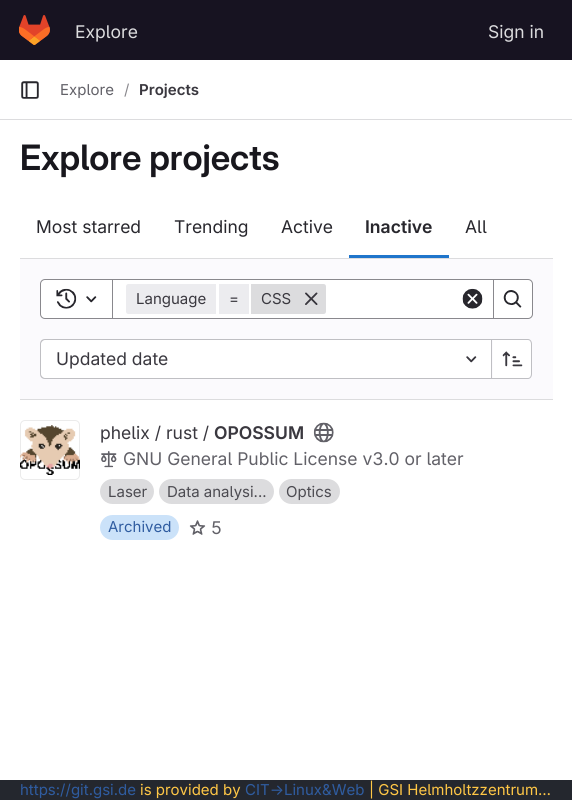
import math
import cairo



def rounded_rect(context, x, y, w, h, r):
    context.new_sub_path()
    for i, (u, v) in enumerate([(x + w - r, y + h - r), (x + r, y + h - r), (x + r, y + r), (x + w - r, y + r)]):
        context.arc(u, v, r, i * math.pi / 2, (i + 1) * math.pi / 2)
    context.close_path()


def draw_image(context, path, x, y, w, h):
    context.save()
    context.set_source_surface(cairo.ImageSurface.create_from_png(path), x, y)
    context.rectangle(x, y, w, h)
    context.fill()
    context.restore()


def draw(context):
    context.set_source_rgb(1, 1, 1)
    context.paint()
    context.set_source_rgb(23 / 255, 19 / 255, 33 / 255)
    context.rectangle(0, 0, 572, 60)
    context.fill()
    draw_image(context, "images/1.png", 19, 15, 31, 30)
    context.set_source_rgb(220 / 255, 220 / 255, 222 / 255)
    context.rectangle(0, 119, 572, 1)
    context.fill()
    draw_image(context, "images/2.png", 21, 81, 18, 18)
    context.set_source_rgb(31 / 255, 117 / 255, 203 / 255)
    context.rectangle(349, 255, 100, 3)
    context.fill()
    context.set_source_rgb(251 / 255, 250 / 255, 253 / 255)
    context.rectangle(20, 259, 533, 140)
    context.fill()
    context.set_source_rgb(220 / 255, 220 / 255, 222 / 255)
    context.rectangle(20, 258, 533, 1)
    context.fill()
    context.rectangle(20, 399, 533, 1)
    context.fill()
    context.set_source_rgb(1, 1, 1)
    context.rectangle(113, 280, 380, 38)
    context.fill()
    context.rectangle(111.5, 279.5, 382, 39)
    context.set_source_rgb(137 / 255, 136 / 255, 141 / 255)
    context.set_line_width(1)
    context.stroke()
    context.set_source_rgb(1, 1, 1)
    context.new_path()
    context.move_to(45, 279.5)
    context.line_to(112.5, 279.5)
    context.line_to(112.5, 318.5)
    context.line_to(45, 318.5)
    context.curve_to(42.5, 318.5, 40.5, 316.5, 40.5, 314)
    context.line_to(40.5, 284)
    context.curve_to(40.5, 281.5, 42.5, 279.5, 45, 279.5)
    context.close_path()
    context.fill_preserve()
    context.set_source_rgb(137 / 255, 136 / 255, 141 / 255)
    context.stroke()
    draw_image(context, "images/3.png", 56, 288, 21, 21)
    draw_image(context, "images/4.png", 86, 296, 11, 7)
    context.set_source_rgb(236 / 255, 236 / 255, 239 / 255)
    context.new_path()
    context.move_to(128.5, 284)
    context.line_to(216, 284)
    context.line_to(216, 314)
    context.line_to(128.5, 314)
    context.curve_to(127, 314, 126, 313, 126, 311.5)
    context.line_to(126, 286.5)
    context.curve_to(126, 285, 127, 284, 128.5, 284)
    context.close_path()
    context.fill()
    context.rectangle(219, 284, 30, 30)
    context.fill()
    context.set_source_rgb(220 / 255, 220 / 255, 222 / 255)
    context.new_path()
    context.move_to(251, 284)
    context.line_to(323.5, 284)
    context.curve_to(325, 284, 326, 285, 326, 286.5)
    context.line_to(326, 311.5)
    context.curve_to(326, 313, 325, 314, 323.5, 314)
    context.line_to(251, 314)
    context.close_path()
    context.fill()
    draw_image(context, "images/5.png", 305, 292, 13, 13)
    draw_image(context, "images/6.png", 462, 288, 21, 21)
    context.set_source_rgb(1, 1, 1)
    context.new_path()
    context.move_to(493.5, 279.5)
    context.line_to(528, 279.5)
    context.curve_to(530.5, 279.5, 532.5, 281.5, 532.5, 284)
    context.line_to(532.5, 314)
    context.curve_to(532.5, 316.5, 530.5, 318.5, 528, 318.5)
    context.line_to(493.5, 318.5)
    context.close_path()
    context.fill_preserve()
    context.set_source_rgb(137 / 255, 136 / 255, 141 / 255)
    context.stroke()
    draw_image(context, "images/7.png", 503, 290, 19, 18)
    context.set_source_rgb(1, 1, 1)
    context.new_path()
    context.move_to(45, 340)
    context.line_to(491, 340)
    context.line_to(491, 378)
    context.line_to(45, 378)
    context.curve_to(43, 378, 41, 376, 41, 374)
    context.line_to(41, 344)
    context.curve_to(41, 342, 43, 340, 45, 340)
    context.close_path()
    context.fill()
    context.set_source_rgb(191 / 255, 191 / 255, 195 / 255)
    context.set_fill_rule(cairo.FillRule.EVEN_ODD)
    context.new_path()
    context.move_to(45, 339)
    context.line_to(491, 339)
    context.line_to(491, 379)
    context.line_to(45, 379)
    context.curve_to(42, 379, 40, 377, 40, 374)
    context.line_to(40, 344)
    context.curve_to(40, 341, 42, 339, 45, 339)
    context.close_path()
    context.move_to(45, 340)
    context.line_to(491, 340)
    context.line_to(491, 378)
    context.line_to(45, 378)
    context.curve_to(43, 378, 41, 376, 41, 374)
    context.line_to(41, 344)
    context.curve_to(41, 342, 43, 340, 45, 340)
    context.close_path()
    context.fill()
    draw_image(context, "images/8.png", 466, 356, 11, 7)
    context.set_source_rgb(1, 1, 1)
    context.new_path()
    context.move_to(493, 340)
    context.line_to(527, 340)
    context.curve_to(529, 340, 531, 342, 531, 344)
    context.line_to(531, 374)
    context.curve_to(531, 376, 529, 378, 527, 378)
    context.line_to(493, 378)
    context.close_path()
    context.fill()
    context.set_source_rgb(191 / 255, 191 / 255, 195 / 255)
    context.new_path()
    context.move_to(492, 339)
    context.line_to(528, 339)
    context.curve_to(530, 339, 532, 341, 532, 344)
    context.line_to(532, 374)
    context.curve_to(532, 377, 530, 379, 528, 379)
    context.line_to(492, 379)
    context.close_path()
    context.move_to(492, 340)
    context.line_to(528, 340)
    context.curve_to(530, 340, 531, 342, 531, 344)
    context.line_to(531, 374)
    context.curve_to(531, 376, 530, 378, 528, 378)
    context.line_to(492, 378)
    context.close_path()
    context.fill()
    context.rectangle(491, 339, 1, 40)
    context.fill()
    draw_image(context, "images/9.png", 502, 351, 21, 16)
    draw_image(context, "images/10.png", 20, 425, 60, 50)
    rounded_rect(context, 20.5, 420.5, 59, 59, 4.5)
    context.set_source_rgba(5 / 255, 5 / 255, 6 / 255, 0.08)
    context.stroke()
    draw_image(context, "images/11.png", 313, 422, 21, 21)
    draw_image(context, "images/12.png", 101, 451, 16, 17)
    context.set_source_rgb(220 / 255, 220 / 255, 222 / 255)
    rounded_rect(context, 100, 479, 54, 25, 12.5)
    context.fill()
    rounded_rect(context, 159, 479, 115, 25, 12.5)
    context.fill()
    rounded_rect(context, 279, 479, 61, 25, 12.5)
    context.fill()
    context.set_source_rgb(203 / 255, 226 / 255, 249 / 255)
    rounded_rect(context, 100, 515, 79, 25, 12.5)
    context.fill()
    draw_image(context, "images/13.png", 189, 520, 17, 15)
    context.set_source_rgb(36 / 255, 39 / 255, 46 / 255)
    context.rectangle(0, 780, 572, 20)
    context.fill()
    context.select_font_face("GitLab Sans")
    context.set_font_size(17.5)
    context.set_source_rgb(220 / 255, 220 / 255, 222 / 255)
    context.move_to(75, 38)
    context.show_text("Explore")
    context.move_to(488, 38)
    context.show_text("Sign in")
    context.set_font_size(15)
    context.set_source_rgb(98 / 255, 97 / 255, 104 / 255)
    context.move_to(60, 95)
    context.show_text("Explore")
    context.set_source_rgb(137 / 255, 136 / 255, 141 / 255)
    context.move_to(124, 95)
    context.show_text("/")
    context.select_font_face("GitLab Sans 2 SemiBold")
    context.set_source_rgb(58 / 255, 56 / 255, 63 / 255)
    context.move_to(139, 95)
    context.show_text("Projects")
    context.select_font_face("GitLab Sans SemiBold")
    context.set_font_size(35)
    context.set_source_rgb(24 / 255, 23 / 255, 29 / 255)
    context.move_to(20, 170)
    context.show_text("Explore projects")
    context.select_font_face("GitLab Sans")
    context.set_font_size(17.5)
    context.set_source_rgb(40 / 255, 39 / 255, 45 / 255)
    context.move_to(36, 233)
    context.show_text("Most starred")
    context.move_to(174, 233)
    context.show_text("Trending")
    context.move_to(281, 233)
    context.show_text("Active")
    context.select_font_face("GitLab Sans 2 SemiBold")
    context.move_to(365, 233)
    context.show_text("Inactive")
    context.select_font_face("GitLab Sans")
    context.move_to(465, 233)
    context.show_text("All")
    context.set_font_size(15)
    context.set_source_rgb(58 / 255, 56 / 255, 63 / 255)
    context.move_to(136, 304)
    context.show_text("Language")
    context.move_to(229, 304)
    context.show_text("=")
    context.move_to(261, 304)
    context.show_text("CSS")
    context.set_font_size(17.5)
    context.move_to(56, 365)
    context.show_text("Updated date")
    context.move_to(100, 439)
    context.show_text("phelix / rust /")
    context.select_font_face("GitLab Sans 2 SemiBold")
    context.move_to(214, 439)
    context.show_text("OPOSSUM")
    context.select_font_face("GitLab Sans")
    context.set_source_rgb(98 / 255, 97 / 255, 104 / 255)
    context.move_to(123, 465)
    context.show_text("GNU General Public License v3.0 or later")
    context.set_font_size(15)
    context.set_source_rgb(76 / 255, 75 / 255, 81 / 255)
    context.move_to(108, 497)
    context.show_text("Laser")
    context.move_to(167, 497)
    context.show_text("Data analysi...")
    context.move_to(286, 497)
    context.show_text("Optics")
    context.set_source_rgb(47 / 255, 92 / 255, 160 / 255)
    context.move_to(108, 532)
    context.show_text("Archived")
    context.set_font_size(17.5)
    context.set_source_rgb(98 / 255, 97 / 255, 104 / 255)
    context.move_to(211, 534)
    context.show_text("5")
    context.set_font_size(15)
    context.set_source_rgb(47 / 255, 92 / 255, 160 / 255)
    context.move_to(20, 795)
    context.show_text("https://git.gsi.de")
    context.set_source_rgb(1, 199 / 255, 70 / 255)
    context.move_to(140, 795)
    context.show_text("is provided by")
    context.set_source_rgb(47 / 255, 92 / 255, 160 / 255)
    context.move_to(245, 795)
    context.show_text("CIT→Linux&Web")
    context.set_source_rgb(1, 199 / 255, 70 / 255)
    context.move_to(369, 795)
    context.show_text("| GSI Helmholtzzentrum…")


surface = cairo.ImageSurface(cairo.Format.RGB24, 572, 800)
context = cairo.Context(surface)
options = cairo.FontOptions()
options.set_hint_metrics(cairo.HintMetrics.OFF)
options.set_hint_style(cairo.HintStyle.NONE)
context.set_font_options(options)
context.set_miter_limit(4)
draw(context)
surface.write_to_png("out.png")
